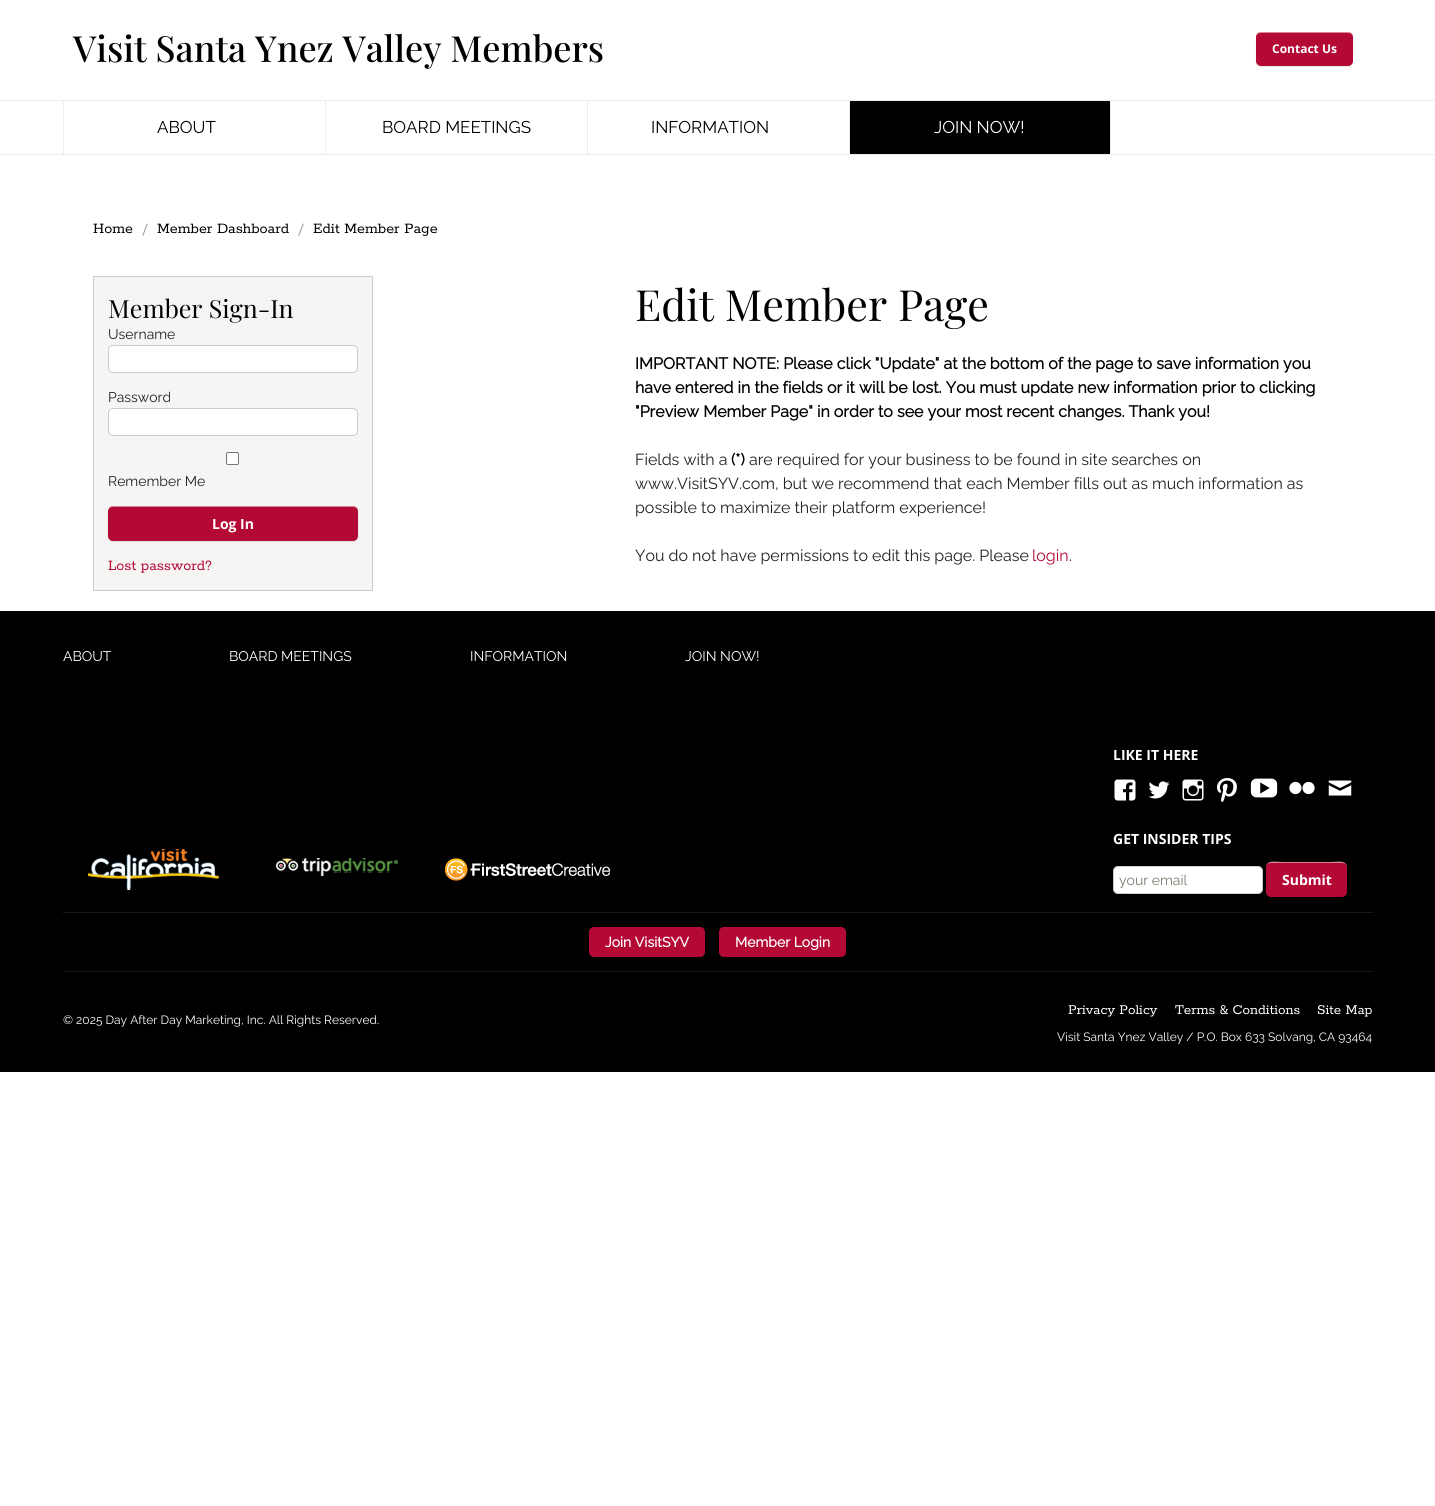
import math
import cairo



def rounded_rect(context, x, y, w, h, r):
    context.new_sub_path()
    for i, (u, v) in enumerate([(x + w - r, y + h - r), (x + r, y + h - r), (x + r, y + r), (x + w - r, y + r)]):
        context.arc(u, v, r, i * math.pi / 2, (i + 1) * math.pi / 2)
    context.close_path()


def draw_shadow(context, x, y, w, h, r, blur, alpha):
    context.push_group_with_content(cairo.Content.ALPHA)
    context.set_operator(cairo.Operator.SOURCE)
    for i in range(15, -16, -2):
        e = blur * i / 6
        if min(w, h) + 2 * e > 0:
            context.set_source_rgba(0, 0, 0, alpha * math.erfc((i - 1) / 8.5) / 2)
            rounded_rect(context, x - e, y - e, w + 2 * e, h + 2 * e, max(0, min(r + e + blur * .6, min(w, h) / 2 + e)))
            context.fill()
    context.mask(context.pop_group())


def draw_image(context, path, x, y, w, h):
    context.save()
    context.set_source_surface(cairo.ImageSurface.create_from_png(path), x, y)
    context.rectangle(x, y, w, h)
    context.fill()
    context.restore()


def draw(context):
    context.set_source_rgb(1, 1, 1)
    context.paint()
    context.set_source_rgb(237 / 255, 237 / 255, 237 / 255)
    context.rectangle(0, 154, 1435, 1)
    context.fill()
    context.set_source_rgb(0, 0, 0)
    draw_shadow(context, 1256, 33, 97, 34, 5, 0.5, 0.1)
    context.set_source_rgb(181 / 255, 9 / 255, 53 / 255)
    rounded_rect(context, 1256, 32, 97, 34, 5)
    context.fill()
    context.set_source_rgba(1, 1, 1, 0.5)
    context.new_path()
    context.move_to(1261, 33)
    context.line_to(1348, 33)
    context.curve_to(1351, 33, 1353, 35, 1353, 38)
    context.curve_to(1353, 28, 1339, 32, 1334, 32)
    context.line_to(1276, 32)
    context.curve_to(1270, 32, 1256, 28, 1256, 38)
    context.curve_to(1256, 35, 1258, 33, 1261, 33)
    context.close_path()
    context.fill()
    context.set_source_rgb(237 / 255, 237 / 255, 237 / 255)
    context.rectangle(0, 100, 1435, 1)
    context.fill()
    context.rectangle(63, 101, 1, 53)
    context.fill()
    context.rectangle(325, 101, 1, 53)
    context.fill()
    context.rectangle(587, 101, 1, 53)
    context.fill()
    context.rectangle(1110, 101, 1, 53)
    context.fill()
    context.rectangle(849, 101, 1, 53)
    context.fill()
    context.set_source_rgb(0, 0, 0)
    context.rectangle(850, 101, 260, 53)
    context.fill()
    context.set_source_rgb(246 / 255, 245 / 255, 243 / 255)
    context.rectangle(93.5, 276.5, 279, 314)
    context.fill_preserve()
    context.set_source_rgb(204 / 255, 204 / 255, 204 / 255)
    context.set_line_width(1)
    context.stroke()
    context.set_source_rgb(1, 1, 1)
    rounded_rect(context, 108.5, 345.5, 249, 27, 4.5)
    context.fill_preserve()
    context.set_source_rgb(204 / 255, 204 / 255, 204 / 255)
    context.stroke()
    context.set_source_rgb(1, 1, 1)
    rounded_rect(context, 108.5, 408.5, 249, 27, 4.5)
    context.fill_preserve()
    context.set_source_rgb(204 / 255, 204 / 255, 204 / 255)
    context.stroke()
    context.set_source_rgb(1, 1, 1)
    rounded_rect(context, 226.5, 452.5, 12, 12, 1.5)
    context.fill_preserve()
    context.set_source_rgb(118 / 255, 118 / 255, 118 / 255)
    context.stroke()
    context.set_source_rgb(0, 0, 0)
    draw_shadow(context, 108, 507, 250, 35, 5, 0.5, 0.1)
    context.set_source_rgb(181 / 255, 9 / 255, 53 / 255)
    rounded_rect(context, 108, 506, 250, 35, 5)
    context.fill()
    context.set_source_rgba(1, 1, 1, 0.5)
    context.new_path()
    context.move_to(113, 507)
    context.line_to(353, 507)
    context.curve_to(356, 507, 358, 509, 358, 512)
    context.line_to(358, 511)
    context.curve_to(358, 508, 356, 506, 353, 506)
    context.line_to(113, 506)
    context.curve_to(110, 506, 108, 508, 108, 511)
    context.line_to(108, 512)
    context.curve_to(108, 509, 110, 507, 113, 507)
    context.close_path()
    context.fill()
    context.set_source_rgb(0, 0, 0)
    context.rectangle(0, 611, 1435, 461)
    context.fill()
    draw_image(context, "images/1.png", 1114, 779, 22, 22)
    draw_image(context, "images/2.png", 1148, 781, 22, 18)
    draw_image(context, "images/3.png", 1182, 779, 22, 22)
    draw_image(context, "images/4.png", 1217, 778, 20, 24)
    draw_image(context, "images/5.png", 1250, 778, 28, 20)
    draw_image(context, "images/6.png", 1289, 781, 26, 14)
    draw_image(context, "images/7.png", 1328, 780, 24, 16)
    context.set_source_rgb(1, 1, 1)
    rounded_rect(context, 1113.5, 866.5, 149, 27, 4.5)
    context.fill_preserve()
    context.set_source_rgb(204 / 255, 204 / 255, 204 / 255)
    context.stroke()
    context.set_source_rgb(181 / 255, 9 / 255, 53 / 255)
    rounded_rect(context, 1266, 862, 81, 35, 5)
    context.fill()
    context.set_source_rgba(1, 1, 1, 0.5)
    context.new_path()
    context.move_to(1271, 863)
    context.line_to(1342, 863)
    context.curve_to(1345, 863, 1347, 865, 1347, 868)
    context.curve_to(1347, 859, 1336, 862, 1330, 862)
    context.line_to(1283, 862)
    context.curve_to(1277, 862, 1266, 859, 1266, 868)
    context.curve_to(1266, 865, 1268, 863, 1271, 863)
    context.close_path()
    context.fill()
    draw_image(context, "images/8.png", 88, 849, 131, 41)
    draw_image(context, "images/9.png", 275, 858, 123, 18)
    draw_image(context, "images/10.png", 445, 858, 165, 23)
    context.set_source_rgb(26 / 255, 26 / 255, 26 / 255)
    context.rectangle(63, 912, 1310, 1)
    context.fill()
    context.rectangle(63, 971, 1310, 1)
    context.fill()
    context.set_source_rgb(181 / 255, 9 / 255, 53 / 255)
    rounded_rect(context, 589, 927, 116, 30, 5)
    context.fill()
    rounded_rect(context, 719, 927, 127, 30, 5)
    context.fill()
    context.select_font_face("Playfair Display Medium")
    context.set_font_size(36)
    context.set_source_rgb(0, 0, 0)
    context.move_to(73, 62)
    context.show_text("Visit Santa Ynez Valley Members")
    context.select_font_face("Open Sans", cairo.FontSlant.NORMAL, cairo.FontWeight.BOLD)
    context.set_font_size(12)
    context.set_source_rgb(1, 1, 1)
    context.move_to(1272, 53)
    context.show_text("Contact Us")
    context.select_font_face("Raleway Thin")
    context.set_font_size(17)
    context.set_source_rgb(0, 0, 0)
    context.move_to(157, 133)
    context.show_text("ABOUT")
    context.move_to(382, 133)
    context.show_text("BOARD MEETINGS")
    context.move_to(651, 133)
    context.show_text("INFORMATION")
    context.set_source_rgb(1, 1, 1)
    context.move_to(934, 133)
    context.show_text("JOIN NOW!")
    context.select_font_face("Rokkitt SemiBold")
    context.set_font_size(16)
    context.set_source_rgb(0, 0, 0)
    context.move_to(93, 233)
    context.show_text("Home")
    context.set_source_rgb(158 / 255, 150 / 255, 139 / 255)
    context.move_to(142, 233)
    context.show_text("/")
    context.set_source_rgb(0, 0, 0)
    context.move_to(157, 233)
    context.show_text("Member Dashboard")
    context.set_source_rgb(158 / 255, 150 / 255, 139 / 255)
    context.move_to(298, 233)
    context.show_text("/")
    context.set_source_rgb(0, 0, 0)
    context.move_to(313, 233)
    context.show_text("Edit Member Page")
    context.select_font_face("Playfair Display")
    context.set_font_size(25)
    context.move_to(108, 318)
    context.show_text("Member Sign-In")
    context.select_font_face("Raleway Thin")
    context.set_font_size(14)
    context.set_source_rgb(33 / 255, 33 / 255, 33 / 255)
    context.move_to(108, 339)
    context.show_text("Username")
    context.move_to(108, 402)
    context.show_text("Password")
    context.move_to(108, 486)
    context.show_text("Remember Me")
    context.select_font_face("Open Sans", cairo.FontSlant.NORMAL, cairo.FontWeight.BOLD)
    context.set_source_rgb(1, 1, 1)
    context.move_to(212, 529)
    context.show_text("Log In")
    context.select_font_face("Rokkitt SemiBold")
    context.set_font_size(16)
    context.set_source_rgb(181 / 255, 9 / 255, 53 / 255)
    context.move_to(108, 570)
    context.show_text("Lost password?")
    context.select_font_face("Playfair Display")
    context.set_font_size(43)
    context.set_source_rgb(0, 0, 0)
    context.move_to(635, 321)
    context.show_text("Edit Member Page")
    context.select_font_face("Raleway", cairo.FontSlant.NORMAL, cairo.FontWeight.BOLD)
    context.set_font_size(16)
    context.move_to(635, 369)
    context.show_text("IMPORTANT NOTE: Please click \"Update\" at the bottom of the page to save information you")
    context.move_to(635, 393)
    context.show_text("have entered in the fields or it will be lost. You must update new information prior to clicking")
    context.move_to(635, 417)
    context.show_text("\"Preview Member Page\" in order to see your most recent changes. Thank you!")
    context.select_font_face("Raleway Thin")
    context.set_source_rgb(33 / 255, 33 / 255, 33 / 255)
    context.move_to(635, 465)
    context.show_text("Fields with a")
    context.select_font_face("Raleway", cairo.FontSlant.NORMAL, cairo.FontWeight.BOLD)
    context.set_source_rgb(0, 0, 0)
    context.move_to(731, 465)
    context.show_text("(*)")
    context.select_font_face("Raleway Thin")
    context.set_source_rgb(33 / 255, 33 / 255, 33 / 255)
    context.move_to(749, 465)
    context.show_text("are required for your business to be found in site searches on")
    context.move_to(635, 489)
    context.show_text("www.VisitSYV.com, but we recommend that each Member fills out as much information as")
    context.move_to(635, 513)
    context.show_text("possible to maximize their platform experience!")
    context.move_to(635, 561)
    context.show_text("You do not have permissions to edit this page. Please")
    context.set_source_rgb(181 / 255, 9 / 255, 53 / 255)
    context.move_to(1032, 561)
    context.show_text("login")
    context.set_source_rgb(33 / 255, 33 / 255, 33 / 255)
    context.move_to(1069, 561)
    context.show_text(".")
    context.set_font_size(14)
    context.set_source_rgb(1, 1, 1)
    context.move_to(63, 661)
    context.show_text("ABOUT")
    context.move_to(229, 661)
    context.show_text("BOARD MEETINGS")
    context.move_to(470, 661)
    context.show_text("INFORMATION")
    context.move_to(685, 661)
    context.show_text("JOIN NOW!")
    context.select_font_face("Open Sans", cairo.FontSlant.NORMAL, cairo.FontWeight.BOLD)
    context.move_to(1113, 760)
    context.show_text("LIKE IT HERE")
    context.move_to(1113, 844)
    context.show_text("GET INSIDER TIPS")
    context.select_font_face("Raleway Thin")
    context.set_source_rgb(125 / 255, 123 / 255, 109 / 255)
    context.move_to(1119, 885)
    context.show_text("your email")
    context.select_font_face("Open Sans", cairo.FontSlant.NORMAL, cairo.FontWeight.BOLD)
    context.set_source_rgb(1, 1, 1)
    context.move_to(1282, 885)
    context.show_text("Submit")
    context.select_font_face("Raleway", cairo.FontSlant.NORMAL, cairo.FontWeight.BOLD)
    context.move_to(605, 947)
    context.show_text("Join VisitSYV")
    context.move_to(735, 947)
    context.show_text("Member Login")
    context.select_font_face("Raleway Thin")
    context.set_font_size(12)
    context.move_to(63, 1024)
    context.show_text("© 2025 Day After Day Marketing, Inc. All Rights Reserved.")
    context.select_font_face("Rokkitt SemiBold")
    context.set_font_size(15)
    context.move_to(1068, 1014)
    context.show_text("Privacy Policy")
    context.move_to(1175, 1014)
    context.show_text("Terms & Conditions")
    context.move_to(1317, 1014)
    context.show_text("Site Map")
    context.select_font_face("Raleway Thin")
    context.set_font_size(12)
    context.move_to(1057, 1041)
    context.show_text("Visit Santa Ynez Valley / P.O. Box 633 Solvang, CA 93464")


surface = cairo.ImageSurface(cairo.Format.RGB24, 1435, 1506)
context = cairo.Context(surface)
options = cairo.FontOptions()
options.set_hint_metrics(cairo.HintMetrics.OFF)
options.set_hint_style(cairo.HintStyle.NONE)
context.set_font_options(options)
context.set_miter_limit(4)
draw(context)
surface.write_to_png("out.png")
